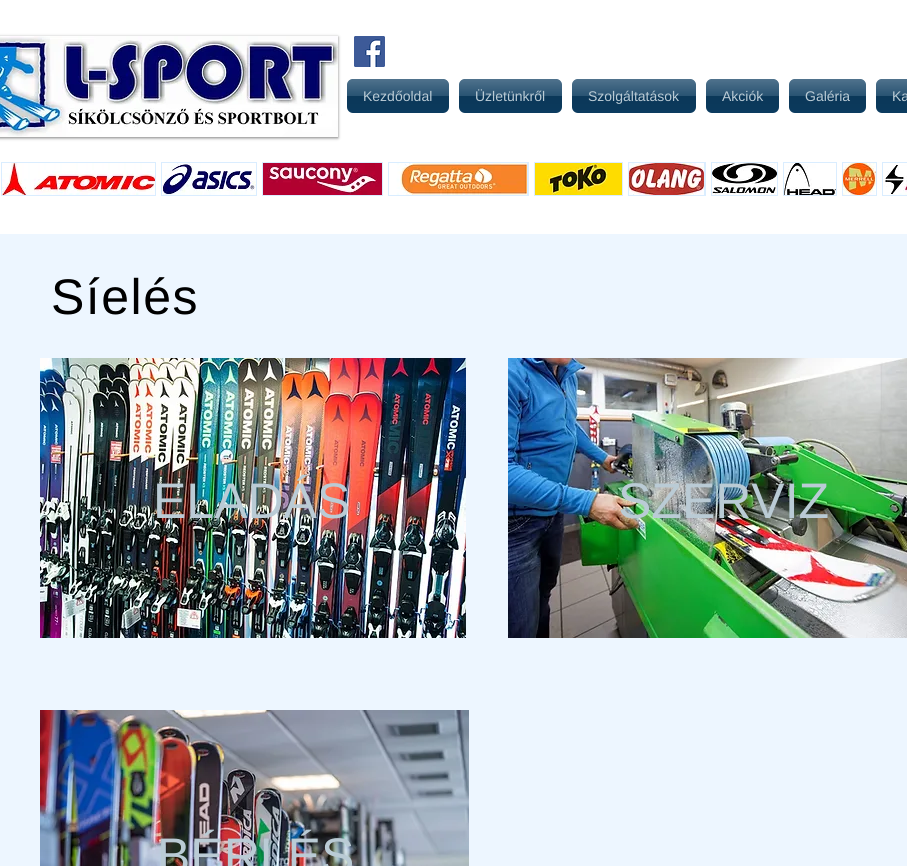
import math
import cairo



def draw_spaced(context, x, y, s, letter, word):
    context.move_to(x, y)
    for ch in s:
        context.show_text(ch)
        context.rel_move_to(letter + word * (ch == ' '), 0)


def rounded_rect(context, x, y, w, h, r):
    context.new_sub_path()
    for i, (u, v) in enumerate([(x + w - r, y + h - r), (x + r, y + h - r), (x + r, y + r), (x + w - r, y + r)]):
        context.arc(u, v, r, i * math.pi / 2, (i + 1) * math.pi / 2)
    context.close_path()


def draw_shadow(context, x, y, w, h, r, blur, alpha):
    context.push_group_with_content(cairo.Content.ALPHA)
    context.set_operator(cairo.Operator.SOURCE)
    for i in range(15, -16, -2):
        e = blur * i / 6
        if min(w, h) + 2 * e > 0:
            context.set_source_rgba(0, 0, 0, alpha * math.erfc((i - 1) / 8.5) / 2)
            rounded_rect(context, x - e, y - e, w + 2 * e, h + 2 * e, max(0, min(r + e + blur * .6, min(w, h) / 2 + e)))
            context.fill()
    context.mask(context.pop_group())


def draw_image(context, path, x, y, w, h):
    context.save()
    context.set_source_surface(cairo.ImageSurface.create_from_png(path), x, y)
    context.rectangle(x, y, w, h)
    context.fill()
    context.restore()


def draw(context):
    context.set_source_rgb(1, 1, 1)
    context.paint()
    context.set_source_rgb(0, 0, 0)
    draw_shadow(context, -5, 37, 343, 101, 0, 1.5, 0.5)
    draw_image(context, "images/1.png", 0, 36, 338, 101)
    draw_image(context, "images/2.png", 354, 36, 31, 31)
    context.set_source_rgb(12 / 255, 60 / 255, 96 / 255)
    rounded_rect(context, 347, 79, 102, 34, 6)
    context.fill()
    draw_image(context, "images/3.png", 347, 79, 102, 31)
    rounded_rect(context, 459, 79, 103, 34, 6)
    context.fill()
    draw_image(context, "images/4.png", 459, 79, 103, 31)
    rounded_rect(context, 572, 79, 124, 34, 6)
    context.fill()
    draw_image(context, "images/5.png", 572, 79, 124, 31)
    rounded_rect(context, 706, 79, 73, 34, 6)
    context.fill()
    draw_image(context, "images/6.png", 706, 79, 73, 31)
    rounded_rect(context, 789, 79, 77, 34, 6)
    context.fill()
    draw_image(context, "images/7.png", 789, 79, 77, 31)
    rounded_rect(context, 876, 79, 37, 34, 6)
    context.fill()
    draw_image(context, "images/8.png", 876, 79, 31, 31)
    context.set_source_rgb(218 / 255, 237 / 255, 1)
    context.rectangle(1, 162, 155, 34)
    context.fill()
    draw_image(context, "images/9.png", 2, 163, 153, 32)
    context.rectangle(161, 162, 96, 34)
    context.fill()
    draw_image(context, "images/10.png", 162, 163, 94, 32)
    context.rectangle(262, 162, 121, 34)
    context.fill()
    draw_image(context, "images/11.png", 263, 163, 119, 32)
    context.rectangle(388, 162, 141, 34)
    context.fill()
    draw_image(context, "images/12.png", 389, 163, 138, 32)
    context.rectangle(534, 162, 89, 34)
    context.fill()
    draw_image(context, "images/13.png", 535, 163, 87, 32)
    context.rectangle(628, 162, 78, 34)
    context.fill()
    draw_image(context, "images/14.png", 629, 163, 75, 32)
    context.rectangle(711, 162, 67, 34)
    context.fill()
    draw_image(context, "images/15.png", 712, 163, 65, 32)
    context.rectangle(783, 162, 54, 34)
    context.fill()
    draw_image(context, "images/16.png", 784, 163, 52, 32)
    context.rectangle(842, 162, 35, 34)
    context.fill()
    draw_image(context, "images/17.png", 843, 163, 33, 32)
    context.rectangle(882, 162, 25, 34)
    context.fill()
    draw_image(context, "images/18.png", 883, 163, 24, 32)
    context.set_source_rgb(237 / 255, 246 / 255, 1)
    context.rectangle(0, 234, 907, 632)
    context.fill()
    draw_image(context, "images/19.png", 40, 358, 426, 280)
    draw_image(context, "images/20.png", 508, 358, 399, 280)
    draw_image(context, "images/21.png", 40, 710, 429, 156)
    context.select_font_face("Liberation Sans")
    context.set_font_size(14)
    context.set_source_rgb(186 / 255, 203 / 255, 213 / 255)
    context.move_to(363, 101)
    context.show_text("Kezdőoldal")
    context.move_to(475, 101)
    context.show_text("Üzletünkről")
    context.move_to(588, 101)
    context.show_text("Szolgáltatások")
    context.move_to(722, 101)
    context.show_text("Akciók")
    context.move_to(805, 101)
    context.show_text("Galéria")
    context.move_to(892, 101)
    context.show_text("Ka")
    context.set_font_size(50)
    context.set_source_rgb(0, 0, 0)
    draw_spaced(context, 51, 314, "Síelés", 1.5, 0)
    context.set_source_rgb(186 / 255, 203 / 255, 213 / 255)
    context.move_to(153, 518)
    context.show_text("ELADÁS")
    context.move_to(618, 518)
    context.show_text("SZERVIZ")
    context.move_to(157, 873)
    context.show_text("BÉRLÉS")


surface = cairo.ImageSurface(cairo.Format.RGB24, 907, 866)
context = cairo.Context(surface)
options = cairo.FontOptions()
options.set_hint_metrics(cairo.HintMetrics.OFF)
options.set_hint_style(cairo.HintStyle.NONE)
context.set_font_options(options)
context.set_miter_limit(4)
draw(context)
surface.write_to_png("out.png")
